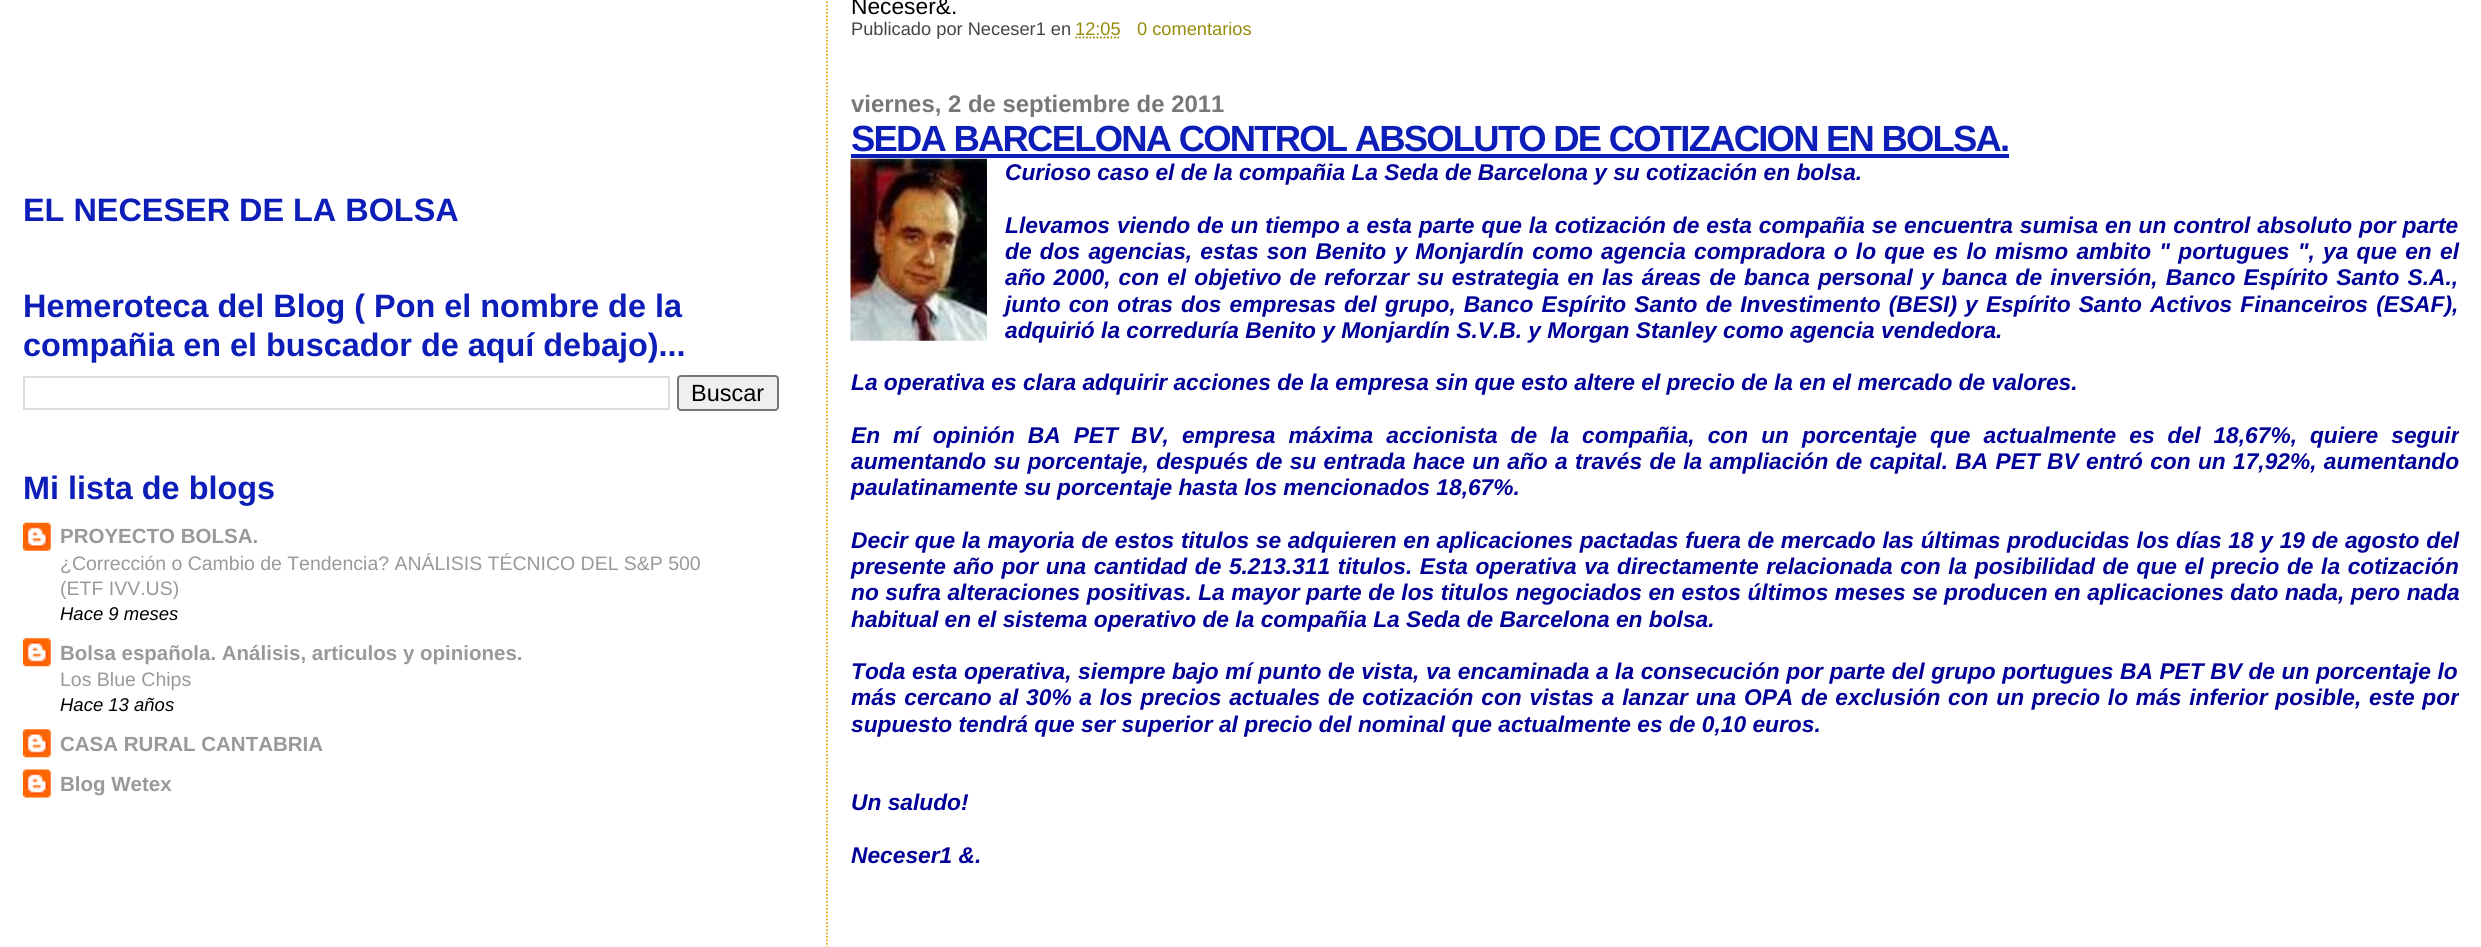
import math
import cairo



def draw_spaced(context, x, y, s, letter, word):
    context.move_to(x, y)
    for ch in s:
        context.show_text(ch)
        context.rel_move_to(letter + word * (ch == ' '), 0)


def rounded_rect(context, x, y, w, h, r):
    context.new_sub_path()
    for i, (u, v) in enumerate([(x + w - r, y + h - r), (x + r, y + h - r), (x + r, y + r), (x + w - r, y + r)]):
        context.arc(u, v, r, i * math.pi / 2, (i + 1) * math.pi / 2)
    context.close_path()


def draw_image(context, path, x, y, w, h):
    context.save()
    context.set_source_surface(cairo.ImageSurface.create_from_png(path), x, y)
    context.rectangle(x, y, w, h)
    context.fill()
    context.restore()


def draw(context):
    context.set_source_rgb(1, 1, 1)
    context.paint()
    context.rectangle(24, 377, 645, 32)
    context.set_source_rgb(221 / 255, 221 / 255, 221 / 255)
    context.stroke()
    context.set_source_rgb(239 / 255, 239 / 255, 239 / 255)
    rounded_rect(context, 678, 376, 100, 34, 3)
    context.fill_preserve()
    context.set_source_rgb(118 / 255, 118 / 255, 118 / 255)
    context.stroke()
    draw_image(context, "images/1.png", 22, 522, 29, 29)
    draw_image(context, "images/2.png", 22, 638, 29, 29)
    draw_image(context, "images/2.png", 22, 729, 29, 29)
    draw_image(context, "images/3.png", 22, 769, 29, 29)
    context.new_path()
    context.move_to(827, -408)
    context.line_to(827, 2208.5)
    context.set_source_rgb(224 / 255, 173 / 255, 18 / 255)
    context.set_line_width(1.8)
    context.set_dash([1.75, 1.75])
    context.stroke()
    context.new_path()
    context.move_to(1075.5, 37.5)
    context.line_to(1121, 37.5)
    context.set_source_rgb(150 / 255, 138 / 255, 10 / 255)
    context.stroke()
    context.set_source_rgb(13 / 255, 29 / 255, 184 / 255)
    context.rectangle(851, 154, 1158, 4)
    context.fill()
    draw_image(context, "images/4.png", 850, 158, 137, 183)
    context.select_font_face("Liberation Sans", cairo.FontSlant.NORMAL, cairo.FontWeight.BOLD)
    context.set_font_size(32.4)
    context.move_to(23, 221)
    context.show_text("EL NECESER DE LA BOLSA")
    context.move_to(23, 317)
    context.show_text("Hemeroteca del Blog ( Pon el nombre de la")
    context.move_to(23, 356)
    context.show_text("compañia en el buscador de aquí debajo)...")
    context.select_font_face("Liberation Sans")
    context.set_font_size(23.5)
    context.set_source_rgb(0, 0, 0)
    context.move_to(691, 401)
    context.show_text("Buscar")
    context.select_font_face("Liberation Sans", cairo.FontSlant.NORMAL, cairo.FontWeight.BOLD)
    context.set_font_size(32.4)
    context.set_source_rgb(13 / 255, 29 / 255, 184 / 255)
    context.move_to(23, 499)
    context.show_text("Mi lista de blogs")
    context.set_font_size(20.5)
    context.set_source_rgb(153 / 255, 153 / 255, 153 / 255)
    context.move_to(60, 543)
    context.show_text("PROYECTO BOLSA.")
    context.select_font_face("Liberation Sans")
    context.set_font_size(19.5)
    draw_spaced(context, 60, 570, "¿Corrección o Cambio de Tendencia? ANÁLISIS TÉCNICO DEL S&P 500", 0, -0.1)
    context.move_to(60, 595)
    context.show_text("(ETF IVV.US)")
    context.select_font_face("Liberation Sans", cairo.FontSlant.ITALIC)
    context.set_font_size(18.5)
    context.set_source_rgb(0, 0, 0)
    context.move_to(60, 620)
    context.show_text("Hace 9 meses")
    context.select_font_face("Liberation Sans", cairo.FontSlant.NORMAL, cairo.FontWeight.BOLD)
    context.set_font_size(20.5)
    context.set_source_rgb(153 / 255, 153 / 255, 153 / 255)
    context.move_to(60, 660)
    context.show_text("Bolsa española. Análisis, articulos y opiniones.")
    context.select_font_face("Liberation Sans")
    context.set_font_size(19.5)
    context.move_to(60, 686)
    context.show_text("Los Blue Chips")
    context.select_font_face("Liberation Sans", cairo.FontSlant.ITALIC)
    context.set_font_size(18.5)
    context.set_source_rgb(0, 0, 0)
    context.move_to(60, 711)
    context.show_text("Hace 13 años")
    context.select_font_face("Liberation Sans", cairo.FontSlant.NORMAL, cairo.FontWeight.BOLD)
    context.set_font_size(20.5)
    context.set_source_rgb(153 / 255, 153 / 255, 153 / 255)
    context.move_to(60, 751)
    context.show_text("CASA RURAL CANTABRIA")
    context.move_to(60, 791)
    context.show_text("Blog Wetex")
    context.select_font_face("Liberation Sans")
    context.set_font_size(22.75)
    context.set_source_rgb(0, 0, 0)
    context.move_to(851, 14)
    context.show_text("Neceser&.")
    context.set_font_size(18.25)
    context.set_source_rgb(68 / 255, 68 / 255, 68 / 255)
    context.move_to(851, 35)
    context.show_text("Publicado por Neceser1 en")
    context.set_source_rgb(150 / 255, 138 / 255, 10 / 255)
    context.move_to(1075, 35)
    context.show_text("12:05")
    context.move_to(1137, 35)
    context.show_text("0 comentarios")
    context.select_font_face("Liberation Sans", cairo.FontSlant.NORMAL, cairo.FontWeight.BOLD)
    context.set_font_size(23.9)
    context.set_source_rgb(119 / 255, 119 / 255, 119 / 255)
    context.move_to(851, 112)
    context.show_text("viernes, 2 de septiembre de 2011")
    context.set_font_size(36.4)
    context.set_source_rgb(13 / 255, 29 / 255, 184 / 255)
    draw_spaced(context, 851, 151, "SEDA BARCELONA CONTROL ABSOLUTO DE COTIZACION EN BOLSA.", -1.75, 0)
    context.select_font_face("Liberation Sans", cairo.FontSlant.ITALIC, cairo.FontWeight.BOLD)
    context.set_font_size(22.75)
    context.set_source_rgb(0, 0, 153 / 255)
    context.move_to(1005, 180)
    context.show_text("Curioso caso el de la compañia La Seda de Barcelona y su cotización en bolsa.")
    draw_spaced(context, 1005, 233, "Llevamos viendo de un tiempo a esta parte que la cotización de esta compañia se encuentra sumisa en un control absoluto por parte", 0, 0.6)
    draw_spaced(context, 1005, 259, "de dos agencias, estas son Benito y Monjardín como agencia compradora o lo que es lo mismo ambito \" portugues \", ya que en", 0, 1.9)
    context.move_to(2440, 259)
    context.show_text("el")
    draw_spaced(context, 1005, 285, "año 2000, con el objetivo de reforzar su estrategia en las áreas de banca personal y banca de inversión, Banco Espírito Santo S.A.,", 0, 1.8)
    draw_spaced(context, 1005, 312, "junto con otras dos empresas del grupo, Banco Espírito Santo de Investimento (BESI) y Espírito Santo Activos Financeiros (ESAF),", 0, 1.8)
    context.move_to(1005, 338)
    context.show_text("adquirió la correduría Benito y Monjardín S.V.B. y Morgan Stanley como agencia vendedora.")
    context.move_to(851, 390)
    context.show_text("La operativa es clara adquirir acciones de la empresa sin que esto altere el precio de la en el mercado de valores.")
    context.save()
    context.rectangle(828, 0, 1631, 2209)
    context.clip()
    draw_spaced(context, 851, 443, "En mí opinión BA PET BV, empresa máxima accionista de la compañia, con un porcentaje que actualmente es del 18,67%, quiere seguir", 0, 6.7)
    context.restore()
    draw_spaced(context, 851, 469, "aumentando su porcentaje, después de su entrada hace un año a través de la ampliación de capital. BA PET BV entró con un 17,92%, aumentando", 0, 1)
    context.move_to(851, 495)
    context.show_text("paulatinamente su porcentaje hasta los mencionados 18,67%.")
    draw_spaced(context, 851, 548, "Decir que la mayoria de estos titulos se adquieren en aplicaciones pactadas fuera de mercado las últimas producidas los días 18 y 19 de agosto del", 0, 0.4)
    draw_spaced(context, 851, 574, "presente año por una cantidad de 5.213.311 titulos. Esta operativa va directamente relacionada con la posibilidad de que el precio de la cotización", 0, 1.25)
    draw_spaced(context, 851, 600, "no sufra alteraciones positivas. La mayor parte de los titulos negociados en estos últimos meses se producen en aplicaciones dato nada, pero nada", 0, 0.2)
    context.move_to(851, 627)
    context.show_text("habitual en el sistema operativo de la compañia La Seda de Barcelona en bolsa.")
    draw_spaced(context, 851, 679, "Toda esta operativa, siempre bajo mí punto de vista, va encaminada a la consecución por parte del grupo portugues BA PET BV de un porcentaje lo", 0, 0.25)
    context.save()
    context.rectangle(828, 0, 1631, 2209)
    context.clip()
    draw_spaced(context, 851, 705, "más cercano al 30% a los precios actuales de cotización con vistas a lanzar una OPA de exclusión con un precio lo más inferior posible, este por", 0, 1.45)
    context.restore()
    context.move_to(851, 732)
    context.show_text("supuesto tendrá que ser superior al precio del nominal que actualmente es de 0,10 euros.")
    context.move_to(851, 810)
    context.show_text("Un saludo!")
    context.move_to(851, 863)
    context.show_text("Neceser1 &.")


surface = cairo.ImageSurface(cairo.Format.RGB24, 2481, 947)
context = cairo.Context(surface)
options = cairo.FontOptions()
options.set_hint_metrics(cairo.HintMetrics.OFF)
options.set_hint_style(cairo.HintStyle.NONE)
context.set_font_options(options)
context.set_miter_limit(4)
draw(context)
surface.write_to_png("out.png")
